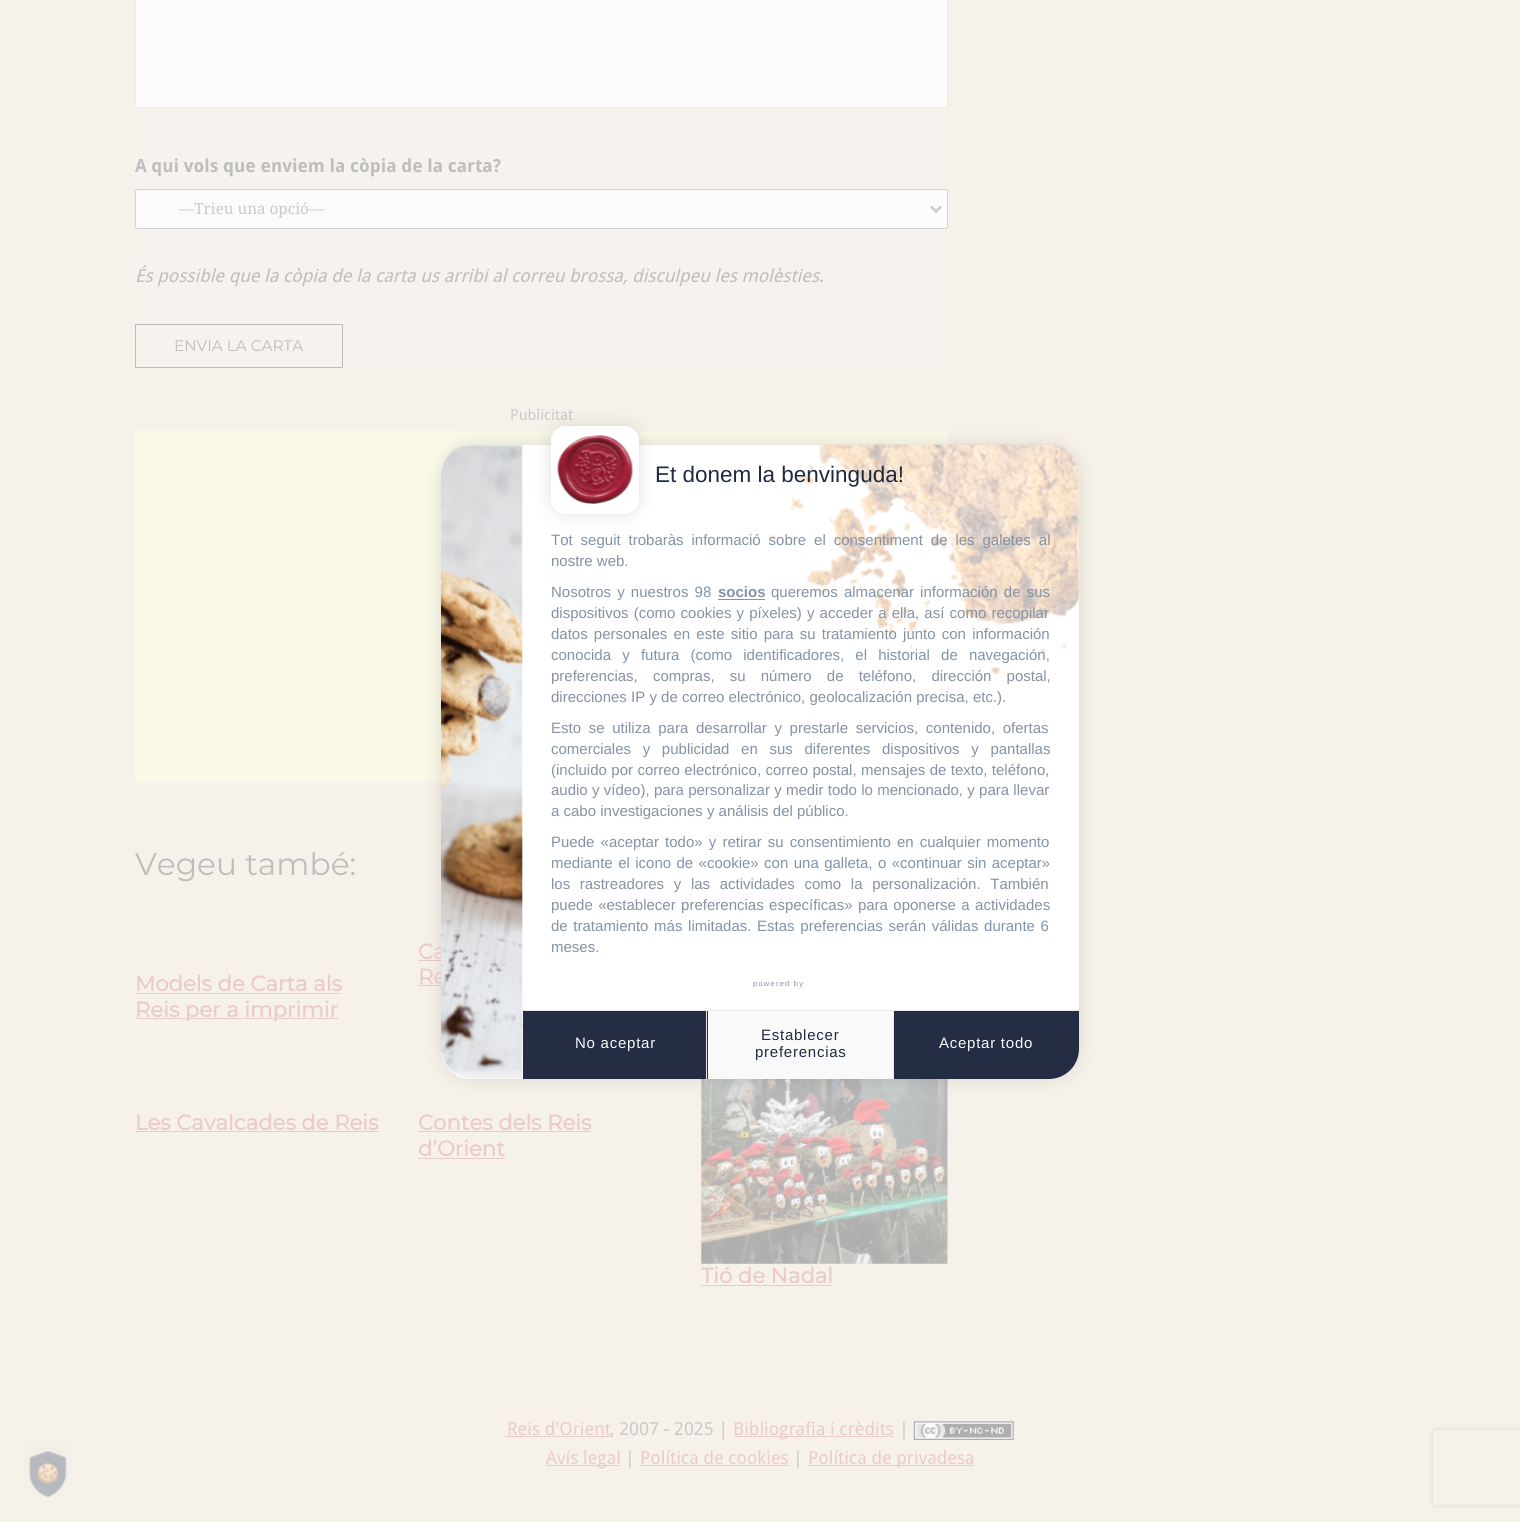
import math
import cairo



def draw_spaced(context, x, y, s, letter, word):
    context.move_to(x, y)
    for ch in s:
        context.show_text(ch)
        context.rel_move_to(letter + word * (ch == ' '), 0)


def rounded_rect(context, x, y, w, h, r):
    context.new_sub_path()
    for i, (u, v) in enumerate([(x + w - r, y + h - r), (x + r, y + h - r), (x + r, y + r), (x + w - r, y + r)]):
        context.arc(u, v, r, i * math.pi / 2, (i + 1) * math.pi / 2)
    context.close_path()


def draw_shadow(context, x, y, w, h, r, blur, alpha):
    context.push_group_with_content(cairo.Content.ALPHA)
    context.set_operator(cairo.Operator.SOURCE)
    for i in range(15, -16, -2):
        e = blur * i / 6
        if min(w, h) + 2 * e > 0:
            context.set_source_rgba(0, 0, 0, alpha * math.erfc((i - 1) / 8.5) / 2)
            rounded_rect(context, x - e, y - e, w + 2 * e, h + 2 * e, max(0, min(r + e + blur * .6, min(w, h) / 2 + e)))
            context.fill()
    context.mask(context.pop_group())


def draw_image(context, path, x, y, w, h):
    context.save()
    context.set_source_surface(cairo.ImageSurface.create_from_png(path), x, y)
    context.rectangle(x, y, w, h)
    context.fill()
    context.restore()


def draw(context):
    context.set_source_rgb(247 / 255, 242 / 255, 233 / 255)
    context.paint()
    context.set_source_rgb(246 / 255, 242 / 255, 237 / 255)
    rounded_rect(context, 135, -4, 813, 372, 4)
    context.fill()
    context.set_source_rgb(251 / 255, 251 / 255, 251 / 255)
    context.rectangle(135.5, -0.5, 812, 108)
    context.fill_preserve()
    context.set_source_rgb(236 / 255, 236 / 255, 236 / 255)
    context.set_line_width(1)
    context.stroke()
    context.set_source_rgb(251 / 255, 251 / 255, 251 / 255)
    rounded_rect(context, 135.5, 189.5, 812, 39, 2)
    context.fill_preserve()
    context.set_source_rgb(210 / 255, 210 / 255, 210 / 255)
    context.stroke()
    context.new_path()
    context.move_to(931, 206.5)
    context.line_to(936, 211.5)
    context.line_to(941, 206.5)
    context.set_source_rgb(201 / 255, 201 / 255, 201 / 255)
    context.set_line_width(2.5)
    context.stroke()
    context.rectangle(135.5, 324.5, 207, 43)
    context.set_source_rgb(189 / 255, 189 / 255, 189 / 255)
    context.set_line_width(1)
    context.stroke()
    context.set_source_rgb(251 / 255, 249 / 255, 232 / 255)
    context.rectangle(135, 431, 813, 350)
    context.fill()
    context.set_source_rgb(234 / 255, 202 / 255, 202 / 255)
    context.rectangle(418, 960, 23, 1)
    context.fill()
    context.rectangle(418, 985, 23, 1)
    context.fill()
    context.rectangle(135, 993, 206, 1)
    context.fill()
    context.rectangle(135, 1018, 203, 1)
    context.fill()
    context.rectangle(135, 1131, 244, 1)
    context.fill()
    context.rectangle(418, 1131, 173, 1)
    context.fill()
    context.rectangle(418, 1158, 87, 1)
    context.fill()
    draw_image(context, "images/1.png", 701, 1079, 247, 185)
    context.rectangle(701, 1285, 132, 1)
    context.fill()
    context.set_source_rgb(238 / 255, 238 / 255, 238 / 255)
    context.rectangle(0, 1364, 1520, 1)
    context.fill()
    context.set_source_rgb(234 / 255, 202 / 255, 202 / 255)
    context.rectangle(506, 1436, 104, 1)
    context.fill()
    context.rectangle(734, 1436, 160, 1)
    context.fill()
    draw_image(context, "images/2.png", 913, 1421, 101, 19)
    context.rectangle(546, 1465, 74, 1)
    context.fill()
    context.rectangle(640, 1465, 149, 1)
    context.fill()
    context.rectangle(808, 1465, 166, 1)
    context.fill()
    context.set_source_rgb(0, 0, 0)
    draw_shadow(context, 441, 445, 638, 634, 30, 9.5, 0.12)
    draw_image(context, "images/6.png", 23, 1440, 49, 58)
    context.save()
    context.set_fill_rule(cairo.FillRule.EVEN_ODD)
    context.new_path()
    context.move_to(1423, 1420)
    context.line_to(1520, 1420)
    context.line_to(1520, 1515)
    context.line_to(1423, 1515)
    context.close_path()
    context.move_to(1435.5, 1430)
    context.line_to(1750.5, 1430)
    context.curve_to(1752, 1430, 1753, 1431, 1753, 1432.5)
    context.line_to(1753, 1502.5)
    context.curve_to(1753, 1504, 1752, 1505, 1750.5, 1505)
    context.line_to(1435.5, 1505)
    context.curve_to(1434, 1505, 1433, 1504, 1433, 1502.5)
    context.line_to(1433, 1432.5)
    context.curve_to(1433, 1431, 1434, 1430, 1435.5, 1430)
    context.close_path()
    context.clip()
    context.set_source_rgb(213 / 255, 213 / 255, 213 / 255)
    draw_shadow(context, 1433, 1430, 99, 75, 2.5, 3, 1)
    context.restore()
    context.select_font_face("Droid Sans", cairo.FontSlant.NORMAL, cairo.FontWeight.BOLD)
    context.set_font_size(18)
    context.set_source_rgb(190 / 255, 190 / 255, 190 / 255)
    context.move_to(135, 172)
    context.show_text("A qui vols que enviem la còpia de la carta?")
    context.select_font_face("Droid Serif")
    context.set_font_size(15.25)
    context.set_source_rgb(201 / 255, 201 / 255, 201 / 255)
    context.move_to(179, 214)
    context.show_text("—Trieu una opció—")
    context.select_font_face("Droid Sans", cairo.FontSlant.ITALIC)
    context.set_font_size(18)
    context.set_source_rgb(190 / 255, 190 / 255, 190 / 255)
    context.move_to(135, 282)
    context.show_text("És possible que la còpia de la carta us arribi al correu brossa, disculpeu les molèsties.")
    context.select_font_face("Montserrat Thin")
    context.set_font_size(15.25)
    context.move_to(174, 351)
    context.show_text("ENVIA LA CARTA")
    context.select_font_face("Droid Sans")
    context.set_font_size(15)
    context.set_source_rgb(201 / 255, 201 / 255, 201 / 255)
    context.move_to(510, 420)
    context.show_text("Publicitat")
    context.select_font_face("Montserrat Thin")
    context.set_font_size(31.25)
    context.set_source_rgb(190 / 255, 190 / 255, 190 / 255)
    context.move_to(135, 875)
    context.show_text("Vegeu també:")
    context.select_font_face("Montserrat", cairo.FontSlant.NORMAL, cairo.FontWeight.BOLD)
    context.set_font_size(21.25)
    context.set_source_rgb(234 / 255, 202 / 255, 202 / 255)
    context.move_to(418, 959)
    context.show_text("Ca")
    context.move_to(418, 984)
    context.show_text("Re")
    context.move_to(135, 991)
    context.show_text("Models de Carta als")
    context.move_to(135, 1017)
    context.show_text("Reis per a imprimir")
    context.move_to(135, 1130)
    context.show_text("Les Cavalcades de Reis")
    context.move_to(418, 1130)
    context.show_text("Contes dels Reis")
    context.move_to(418, 1156)
    context.show_text("d’Orient")
    context.move_to(701, 1283)
    context.show_text("Tió de Nadal")
    context.select_font_face("Droid Sans")
    context.set_font_size(18)
    context.move_to(507, 1435)
    context.show_text("Reis d'Orient")
    context.set_source_rgb(201 / 255, 201 / 255, 201 / 255)
    context.move_to(610, 1435)
    context.show_text(", 2007 - 2025 |")
    context.set_source_rgb(234 / 255, 202 / 255, 202 / 255)
    context.move_to(733, 1435)
    context.show_text("Bibliografia i crèdits")
    context.set_source_rgb(201 / 255, 201 / 255, 201 / 255)
    context.move_to(899, 1435)
    context.show_text("|")
    context.set_source_rgb(234 / 255, 202 / 255, 202 / 255)
    context.move_to(546, 1464)
    context.show_text("Avís legal")
    context.set_source_rgb(201 / 255, 201 / 255, 201 / 255)
    context.move_to(625, 1464)
    context.show_text("|")
    context.set_source_rgb(234 / 255, 202 / 255, 202 / 255)
    context.move_to(640, 1464)
    context.show_text("Política de cookies")
    context.set_source_rgb(201 / 255, 201 / 255, 201 / 255)
    context.move_to(793, 1464)
    context.show_text("|")
    context.set_source_rgb(234 / 255, 202 / 255, 202 / 255)
    context.move_to(808, 1464)
    context.show_text("Política de privadesa")
    context.set_source_rgb(1, 1, 1)
    rounded_rect(context, 441, 445, 638, 634, 30)
    context.fill()
    context.new_path()
    context.move_to(471, 445)
    context.line_to(523, 445)
    context.line_to(523, 1079)
    context.line_to(471, 1079)
    context.curve_to(454.5, 1079, 441, 1065.5, 441, 1049)
    context.line_to(441, 475)
    context.curve_to(441, 458.5, 454.5, 445, 471, 445)
    context.close_path()
    context.fill()
    draw_image(context, "images/3.png", 441, 444, 82, 635)
    context.set_source_rgb(0, 0, 0)
    draw_shadow(context, 551, 426, 88, 88, 15, 9.5, 0.12)
    context.set_source_rgb(1, 1, 1)
    rounded_rect(context, 551, 426, 88, 88, 15)
    context.fill()
    draw_image(context, "images/4.png", 557, 435, 76, 69)
    rounded_rect(context, 554, 429, 82, 82, 12)
    context.set_line_width(6)
    context.stroke()
    draw_image(context, "images/5.png", 768, 444, 311, 232)
    context.select_font_face("Liberation Sans")
    context.set_font_size(22.5)
    context.set_source_rgb(32 / 255, 41 / 255, 66 / 255)
    context.move_to(655, 482)
    context.show_text("Et donem la benvinguda!")
    context.set_font_size(15)
    context.set_source_rgb(132 / 255, 146 / 255, 166 / 255)
    draw_spaced(context, 551, 545, "Tot seguit trobaràs informació sobre el consentiment de les galetes al", 0, 3.75)
    context.move_to(551, 566)
    context.show_text("nostre web.")
    draw_spaced(context, 551, 597, "Nosotros y nuestros 98", 0, 2)
    context.select_font_face("Liberation Sans", cairo.FontSlant.NORMAL, cairo.FontWeight.BOLD)
    context.move_to(718, 597)
    context.show_text("socios")
    context.rectangle(718, 599, 47, 1)
    context.fill()
    context.select_font_face("Liberation Sans")
    draw_spaced(context, 771, 597, "queremos almacenar información de sus", 0, 2)
    draw_spaced(context, 551, 618, "dispositivos (como cookies y píxeles) y acceder a ella, así como recopilar", 0, 1)
    draw_spaced(context, 551, 639, "datos personales en este sitio para su tratamiento junto con información", 0, 2)
    draw_spaced(context, 551, 660, "conocida y futura (como identificadores, el historial de navegación,", 0, 7)
    draw_spaced(context, 551, 681, "preferencias, compras, su número de teléfono, dirección postal,", 0, 11)
    context.move_to(551, 702)
    context.show_text("direcciones IP y de correo electrónico, geolocalización precisa, etc.).")
    draw_spaced(context, 551, 733, "Esto se utiliza para desarrollar y prestarle servicios, contenido, ofertas", 0, 3.5)
    draw_spaced(context, 551, 754, "comerciales y publicidad en sus diferentes dispositivos y pantallas", 0, 7.5)
    draw_spaced(context, 551, 775, "(incluido por correo electrónico, correo postal, mensajes de texto, teléfono,", 0, 0.25)
    draw_spaced(context, 551, 795, "audio y vídeo), para personalizar y medir todo lo mencionado, y para llevar", 0, 0.1)
    context.move_to(551, 816)
    context.show_text("a cabo investigaciones y análisis del público.")
    draw_spaced(context, 551, 847, "Puede «aceptar todo» y retirar su consentimiento en cualquier momento", 0, 2)
    draw_spaced(context, 551, 868, "mediante el icono de «cookie» con una galleta, o «continuar sin aceptar»", 0, 1.25)
    draw_spaced(context, 551, 889, "los rastreadores y las actividades como la personalización. También", 0, 5.5)
    draw_spaced(context, 551, 910, "puede «establecer preferencias específicas» para oponerse a actividades", 0, 1.25)
    draw_spaced(context, 551, 931, "de tratamiento más limitadas. Estas preferencias serán válidas durante 6", 0, 1.5)
    context.move_to(551, 952)
    context.show_text("meses.")
    context.set_font_size(7.5)
    draw_spaced(context, 753, 986, "powered by", 1.25, 0)
    context.set_source_rgb(37 / 255, 45 / 255, 69 / 255)
    context.rectangle(523, 1011, 185, 68)
    context.fill()
    context.set_source_rgb(234 / 255, 234 / 255, 234 / 255)
    context.rectangle(523, 1010, 371, 1)
    context.fill()
    context.rectangle(706, 1010, 1, 69)
    context.fill()
    context.set_font_size(15)
    context.set_source_rgb(249 / 255, 249 / 255, 249 / 255)
    draw_spaced(context, 575, 1048, "No aceptar", 0.75, 0)
    context.rectangle(708, 1011, 185, 68)
    context.fill()
    context.set_source_rgb(234 / 255, 234 / 255, 234 / 255)
    context.rectangle(893, 1010, 1, 69)
    context.fill()
    context.set_source_rgb(32 / 255, 41 / 255, 66 / 255)
    draw_spaced(context, 761, 1040, "Establecer", 0.75, 0)
    draw_spaced(context, 755, 1057, "preferencias", 0.75, 0)
    context.set_source_rgb(37 / 255, 45 / 255, 69 / 255)
    context.new_path()
    context.move_to(894, 1010)
    context.line_to(1079, 1010)
    context.line_to(1079, 1049)
    context.curve_to(1079, 1065.5, 1065.5, 1079, 1049, 1079)
    context.line_to(894, 1079)
    context.close_path()
    context.fill()
    context.set_source_rgb(234 / 255, 234 / 255, 234 / 255)
    context.rectangle(894, 1010, 185, 1)
    context.fill()
    context.set_source_rgb(249 / 255, 249 / 255, 249 / 255)
    draw_spaced(context, 939, 1048, "Aceptar todo", 0.75, 0)


surface = cairo.ImageSurface(cairo.Format.RGB24, 1520, 1522)
context = cairo.Context(surface)
options = cairo.FontOptions()
options.set_hint_metrics(cairo.HintMetrics.OFF)
options.set_hint_style(cairo.HintStyle.NONE)
context.set_font_options(options)
context.set_miter_limit(4)
draw(context)
surface.write_to_png("out.png")
